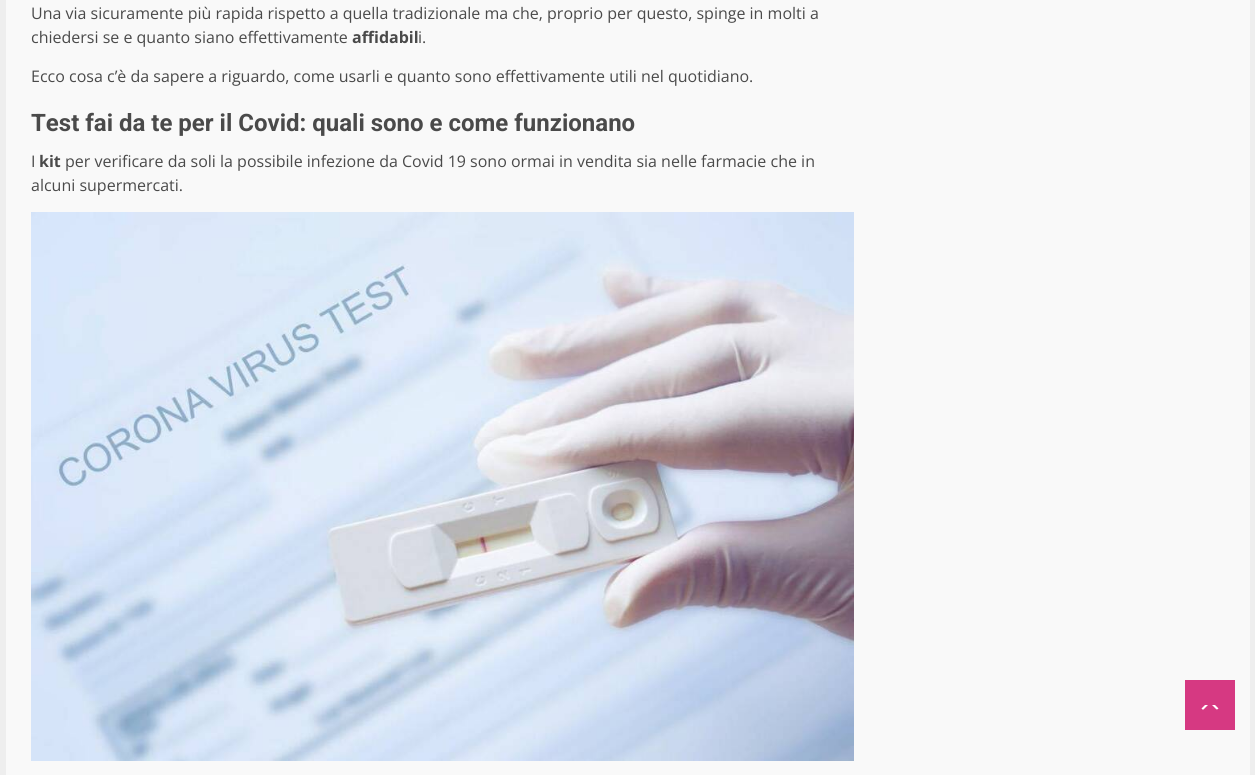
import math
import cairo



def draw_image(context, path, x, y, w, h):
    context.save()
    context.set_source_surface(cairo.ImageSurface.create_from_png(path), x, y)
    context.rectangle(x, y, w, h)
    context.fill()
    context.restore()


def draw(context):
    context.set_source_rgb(238 / 255, 238 / 255, 238 / 255)
    context.paint()
    context.set_source_rgb(249 / 255, 249 / 255, 249 / 255)
    context.rectangle(6, 0, 1244, 775)
    context.fill()
    draw_image(context, "images/1.png", 31, 212, 823, 549)
    context.set_source_rgb(214 / 255, 57 / 255, 130 / 255)
    context.rectangle(1185, 680, 50, 50)
    context.fill()
    context.set_source_rgb(1, 1, 1)
    context.new_path()
    context.move_to(1205, 710)
    context.curve_to(1208, 710, 1216.5, 711, 1218.5, 708.5)
    context.line_to(1215, 705)
    context.line_to(1205, 705)
    context.line_to(1201.5, 708.5)
    context.curve_to(1202, 709.5, 1203.5, 710, 1205, 710)
    context.close_path()
    context.fill()
    context.set_source_rgb(214 / 255, 57 / 255, 130 / 255)
    context.new_path()
    context.move_to(1220, 713)
    context.line_to(1200, 713)
    context.line_to(1210, 703)
    context.close_path()
    context.fill()
    context.select_font_face("Open Sans")
    context.set_font_size(16)
    context.set_source_rgb(74 / 255, 74 / 255, 74 / 255)
    context.move_to(31, 19)
    context.show_text("Una via sicuramente più rapida rispetto a quella tradizionale ma che, proprio per questo, spinge in molti a")
    context.move_to(31, 43)
    context.show_text("chiedersi se e quanto siano effettivamente")
    context.select_font_face("Open Sans", cairo.FontSlant.NORMAL, cairo.FontWeight.BOLD)
    context.move_to(352, 43)
    context.show_text("affidabil")
    context.select_font_face("Open Sans")
    context.move_to(418, 43)
    context.show_text("i.")
    context.move_to(31, 82)
    context.show_text("Ecco cosa c’è da sapere a riguardo, come usarli e quanto sono effettivamente utili nel quotidiano.")
    context.select_font_face("Roboto", cairo.FontSlant.NORMAL, cairo.FontWeight.BOLD)
    context.set_font_size(24)
    context.move_to(31, 131)
    context.show_text("Test fai da te per il Covid: quali sono e come funzionano")
    context.select_font_face("Open Sans")
    context.set_font_size(16)
    context.move_to(31, 167)
    context.show_text("I")
    context.select_font_face("Open Sans", cairo.FontSlant.NORMAL, cairo.FontWeight.BOLD)
    context.move_to(39, 167)
    context.show_text("kit")
    context.select_font_face("Open Sans")
    context.move_to(65, 167)
    context.show_text("per verificare da soli la possibile infezione da Covid 19 sono ormai in vendita sia nelle farmacie che in")
    context.move_to(31, 191)
    context.show_text("alcuni supermercati.")


surface = cairo.ImageSurface(cairo.Format.RGB24, 1255, 775)
context = cairo.Context(surface)
options = cairo.FontOptions()
options.set_hint_metrics(cairo.HintMetrics.OFF)
options.set_hint_style(cairo.HintStyle.NONE)
context.set_font_options(options)
context.set_miter_limit(4)
draw(context)
surface.write_to_png("out.png")
